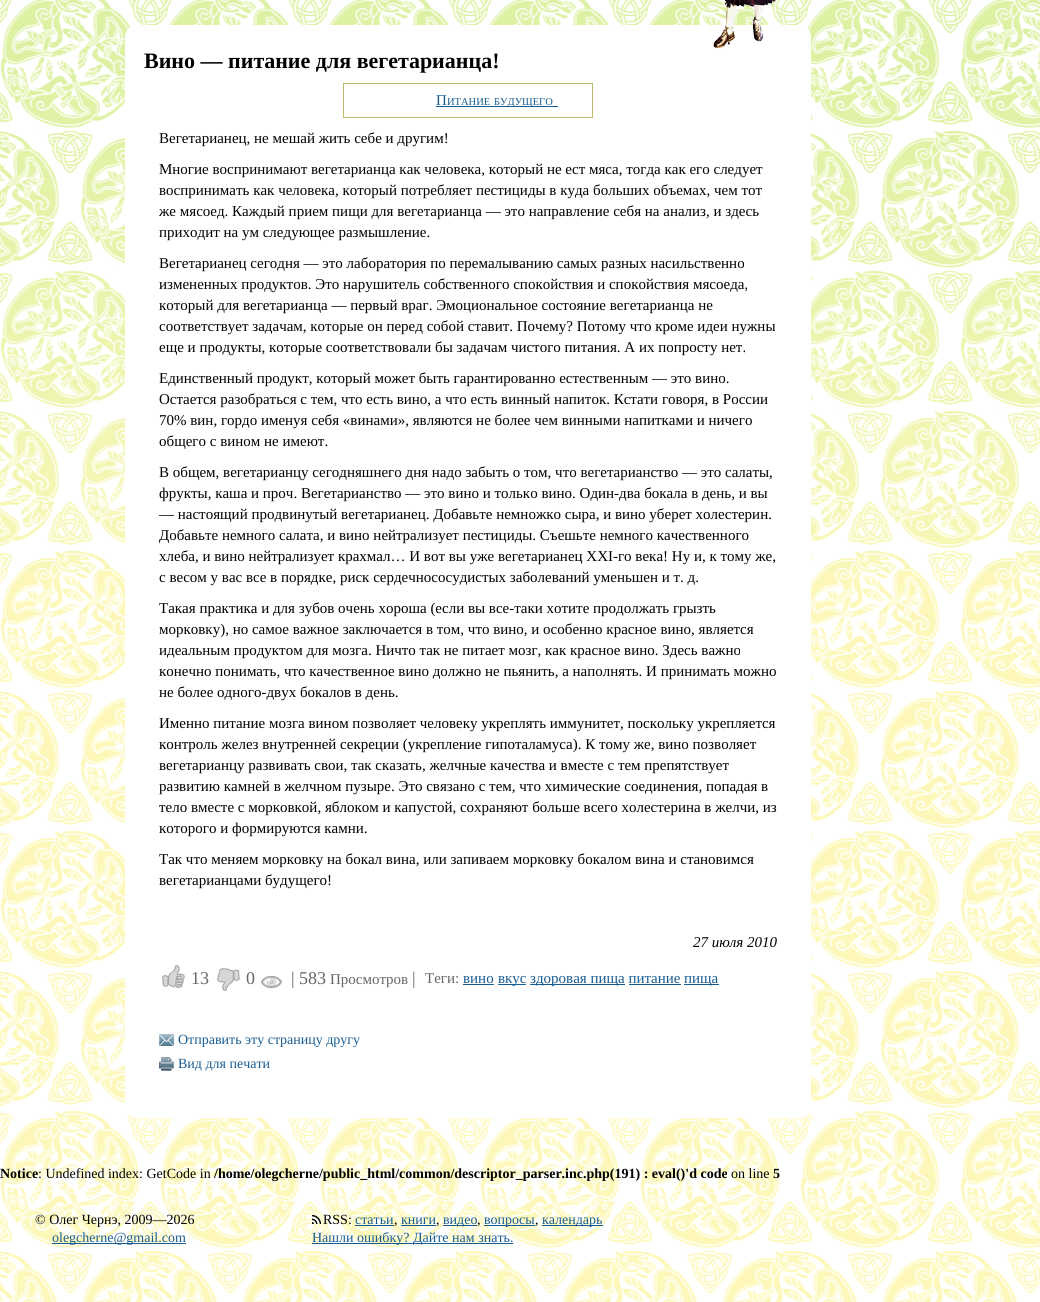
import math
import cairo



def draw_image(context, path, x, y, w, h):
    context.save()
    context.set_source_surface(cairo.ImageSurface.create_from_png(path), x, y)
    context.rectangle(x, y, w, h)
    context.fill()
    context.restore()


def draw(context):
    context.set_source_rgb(253 / 255, 248 / 255, 186 / 255)
    context.paint()
    draw_image(context, "images/1.png", 0, 0, 1040, 573)
    draw_image(context, "images/2.png", 0, 0, 1040, 1302)
    context.set_source_rgb(1, 1, 1)
    context.rectangle(125, 36, 686, 1071)
    context.fill()
    context.rectangle(142, 25, 656, 11)
    context.fill()
    draw_image(context, "images/3.png", 713, 0, 64, 49)
    draw_image(context, "images/4.png", 125, 27, 11, 9)
    draw_image(context, "images/5.png", 804, 28, 7, 8)
    context.rectangle(343.5, 83.5, 249, 34)
    context.set_source_rgb(189 / 255, 183 / 255, 107 / 255)
    context.set_line_width(1)
    context.stroke()
    context.set_source_rgb(23 / 255, 92 / 255, 145 / 255)
    context.rectangle(436, 106, 122, 1)
    context.fill()
    draw_image(context, "images/6.png", 162, 965, 23, 23)
    draw_image(context, "images/7.png", 217, 968, 23, 23)
    draw_image(context, "images/8.png", 261, 976, 21, 12)
    context.rectangle(463, 984, 31, 1)
    context.fill()
    context.rectangle(498, 984, 28, 1)
    context.fill()
    context.rectangle(530, 984, 95, 1)
    context.fill()
    context.rectangle(684, 984, 35, 1)
    context.fill()
    context.rectangle(629, 984, 52, 1)
    context.fill()
    draw_image(context, "images/9.png", 159, 1034, 15, 12)
    draw_image(context, "images/10.png", 159, 1057, 15, 14)
    draw_image(context, "images/11.png", 129, 1113, 7, 5)
    context.set_source_rgb(1, 1, 1)
    context.rectangle(136, 1107, 664, 11)
    context.fill()
    draw_image(context, "images/12.png", 800, 1113, 8, 5)
    context.set_source_rgb(23 / 255, 92 / 255, 145 / 255)
    context.rectangle(52, 1243, 134, 1)
    context.fill()
    draw_image(context, "images/13.png", 312, 1215, 9, 9)
    context.rectangle(355, 1225, 39, 1)
    context.fill()
    context.rectangle(401, 1225, 35, 1)
    context.fill()
    context.rectangle(443, 1225, 34, 1)
    context.fill()
    context.rectangle(484, 1225, 51, 1)
    context.fill()
    context.rectangle(542, 1225, 61, 1)
    context.fill()
    context.rectangle(312, 1243, 201, 1)
    context.fill()
    context.select_font_face("Liberation Serif", cairo.FontSlant.NORMAL, cairo.FontWeight.BOLD)
    context.set_font_size(22)
    context.set_source_rgb(0, 0, 0)
    context.move_to(144, 68)
    context.show_text("Вино — питание для вегетарианца!")
    context.select_font_face("Liberation Serif")
    context.set_font_size(15)
    context.set_source_rgb(23 / 255, 92 / 255, 145 / 255)
    context.move_to(436, 105)
    context.show_text("П")
    context.set_font_size(10.5)
    context.move_to(447, 105)
    context.show_text("ИТАНИЕ")
    context.move_to(494, 105)
    context.show_text("БУДУЩЕГО")
    context.set_font_size(15)
    context.set_source_rgb(0, 0, 0)
    context.move_to(159, 143)
    context.show_text("Вегетарианец, не мешай жить себе и другим!")
    context.move_to(159, 174)
    context.show_text("Многие воспринимают вегетарианца как человека, который не ест мяса, тогда как его следует")
    context.move_to(159, 195)
    context.show_text("воспринимать как человека, который потребляет пестициды в куда больших объемах, чем тот")
    context.move_to(159, 216)
    context.show_text("же мясоед. Каждый прием пищи для вегетарианца — это направление себя на анализ, и здесь")
    context.move_to(159, 237)
    context.show_text("приходит на ум следующее размышление.")
    context.move_to(159, 268)
    context.show_text("Вегетарианец сегодня — это лаборатория по перемалыванию самых разных насильственно")
    context.move_to(159, 289)
    context.show_text("измененных продуктов. Это нарушитель собственного спокойствия и спокойствия мясоеда,")
    context.move_to(159, 310)
    context.show_text("который для вегетарианца — первый враг. Эмоциональное состояние вегетарианца не")
    context.move_to(159, 331)
    context.show_text("соответствует задачам, которые он перед собой ставит. Почему? Потому что кроме идеи нужны")
    context.move_to(159, 352)
    context.show_text("еще и продукты, которые соответствовали бы задачам чистого питания. А их попросту нет.")
    context.move_to(159, 383)
    context.show_text("Единственный продукт, который может быть гарантированно естественным — это вино.")
    context.move_to(159, 404)
    context.show_text("Остается разобраться с тем, что есть вино, а что есть винный напиток. Кстати говоря, в России")
    context.move_to(159, 425)
    context.show_text("70% вин, гордо именуя себя «винами», являются не более чем винными напитками и ничего")
    context.move_to(159, 446)
    context.show_text("общего с вином не имеют.")
    context.move_to(159, 477)
    context.show_text("В общем, вегетарианцу сегодняшнего дня надо забыть о том, что вегетарианство — это салаты,")
    context.move_to(159, 498)
    context.show_text("фрукты, каша и проч. Вегетарианство — это вино и только вино. Один-два бокала в день, и вы")
    context.move_to(159, 519)
    context.show_text("— настоящий продвинутый вегетарианец. Добавьте немножко сыра, и вино уберет холестерин.")
    context.move_to(159, 540)
    context.show_text("Добавьте немного салата, и вино нейтрализует пестициды. Съешьте немного качественного")
    context.move_to(159, 561)
    context.show_text("хлеба, и вино нейтрализует крахмал… И вот вы уже вегетарианец XXI-го века! Ну и, к тому же,")
    context.move_to(159, 582)
    context.show_text("с весом у вас все в порядке, риск сердечнососудистых заболеваний уменьшен и т. д.")
    context.move_to(159, 613)
    context.show_text("Такая практика и для зубов очень хороша (если вы все-таки хотите продолжать грызть")
    context.move_to(159, 634)
    context.show_text("морковку), но самое важное заключается в том, что вино, и особенно красное вино, является")
    context.move_to(159, 655)
    context.show_text("идеальным продуктом для мозга. Ничто так не питает мозг, как красное вино. Здесь важно")
    context.move_to(159, 676)
    context.show_text("конечно понимать, что качественное вино должно не пьянить, а наполнять. И принимать можно")
    context.move_to(159, 697)
    context.show_text("не более одного-двух бокалов в день.")
    context.move_to(159, 728)
    context.show_text("Именно питание мозга вином позволяет человеку укреплять иммунитет, поскольку укрепляется")
    context.move_to(159, 749)
    context.show_text("контроль желез внутренней секреции (укрепление гипоталамуса). К тому же, вино позволяет")
    context.move_to(159, 770)
    context.show_text("вегетарианцу развивать свои, так сказать, желчные качества и вместе с тем препятствует")
    context.move_to(159, 791)
    context.show_text("развитию камней в желчном пузыре. Это связано с тем, что химические соединения, попадая в")
    context.move_to(159, 812)
    context.show_text("тело вместе с морковкой, яблоком и капустой, сохраняют больше всего холестерина в желчи, из")
    context.move_to(159, 833)
    context.show_text("которого и формируются камни.")
    context.move_to(159, 864)
    context.show_text("Так что меняем морковку на бокал вина, или запиваем морковку бокалом вина и становимся")
    context.move_to(159, 885)
    context.show_text("вегетарианцами будущего!")
    context.select_font_face("Liberation Serif", cairo.FontSlant.ITALIC)
    context.move_to(693, 947)
    context.show_text("27 июля 2010")
    context.select_font_face("Liberation Serif")
    context.set_font_size(18)
    context.set_source_rgb(102 / 255, 102 / 255, 102 / 255)
    context.move_to(191, 984)
    context.show_text("13")
    context.move_to(246, 984)
    context.show_text("0")
    context.move_to(291, 984)
    context.show_text("| 583")
    context.set_font_size(15)
    context.move_to(330, 984)
    context.show_text("Просмотров")
    context.set_font_size(18)
    context.move_to(412, 984)
    context.show_text("|")
    context.set_font_size(15)
    context.move_to(425, 983)
    context.show_text("Теги:")
    context.set_source_rgb(23 / 255, 92 / 255, 145 / 255)
    context.move_to(463, 983)
    context.show_text("вино")
    context.move_to(498, 983)
    context.show_text("вкус")
    context.move_to(530, 983)
    context.show_text("здоровая пища питание")
    context.move_to(684, 983)
    context.show_text("пища")
    context.set_font_size(14)
    context.move_to(178, 1044)
    context.show_text("Отправить эту страницу другу")
    context.move_to(178, 1068)
    context.show_text("Вид для печати")
    context.select_font_face("Liberation Serif", cairo.FontSlant.NORMAL, cairo.FontWeight.BOLD)
    context.set_source_rgb(0, 0, 0)
    context.move_to(0, 1178)
    context.show_text("Notice")
    context.select_font_face("Liberation Serif")
    context.move_to(38, 1178)
    context.show_text(": Undefined index: GetCode in")
    context.select_font_face("Liberation Serif", cairo.FontSlant.NORMAL, cairo.FontWeight.BOLD)
    context.move_to(214, 1178)
    context.show_text("/home/olegcherne/public_html/common/descriptor_parser.inc.php(191) : eval()'d code")
    context.select_font_face("Liberation Serif")
    context.move_to(731, 1178)
    context.show_text("on line")
    context.select_font_face("Liberation Serif", cairo.FontSlant.NORMAL, cairo.FontWeight.BOLD)
    context.move_to(773, 1178)
    context.show_text("5")
    context.select_font_face("Liberation Serif")
    context.move_to(35, 1224)
    context.show_text("© Олег Чернэ, 2009—2026")
    context.set_source_rgb(23 / 255, 92 / 255, 145 / 255)
    context.move_to(52, 1242)
    context.show_text("olegcherne@gmail.com")
    context.set_source_rgb(0, 0, 0)
    context.move_to(323, 1224)
    context.show_text("RSS:")
    context.set_source_rgb(23 / 255, 92 / 255, 145 / 255)
    context.move_to(355, 1224)
    context.show_text("статьи")
    context.set_source_rgb(0, 0, 0)
    context.move_to(394, 1224)
    context.show_text(",")
    context.set_source_rgb(23 / 255, 92 / 255, 145 / 255)
    context.move_to(401, 1224)
    context.show_text("книги")
    context.set_source_rgb(0, 0, 0)
    context.move_to(436, 1224)
    context.show_text(",")
    context.set_source_rgb(23 / 255, 92 / 255, 145 / 255)
    context.move_to(443, 1224)
    context.show_text("видео")
    context.set_source_rgb(0, 0, 0)
    context.move_to(477, 1224)
    context.show_text(",")
    context.set_source_rgb(23 / 255, 92 / 255, 145 / 255)
    context.move_to(484, 1224)
    context.show_text("вопросы")
    context.set_source_rgb(0, 0, 0)
    context.move_to(535, 1224)
    context.show_text(",")
    context.set_source_rgb(23 / 255, 92 / 255, 145 / 255)
    context.move_to(542, 1224)
    context.show_text("календарь")
    context.move_to(312, 1242)
    context.show_text("Нашли ошибку? Дайте нам знать.")


surface = cairo.ImageSurface(cairo.Format.RGB24, 1040, 1302)
context = cairo.Context(surface)
options = cairo.FontOptions()
options.set_hint_metrics(cairo.HintMetrics.OFF)
options.set_hint_style(cairo.HintStyle.NONE)
context.set_font_options(options)
context.set_miter_limit(4)
draw(context)
surface.write_to_png("out.png")
